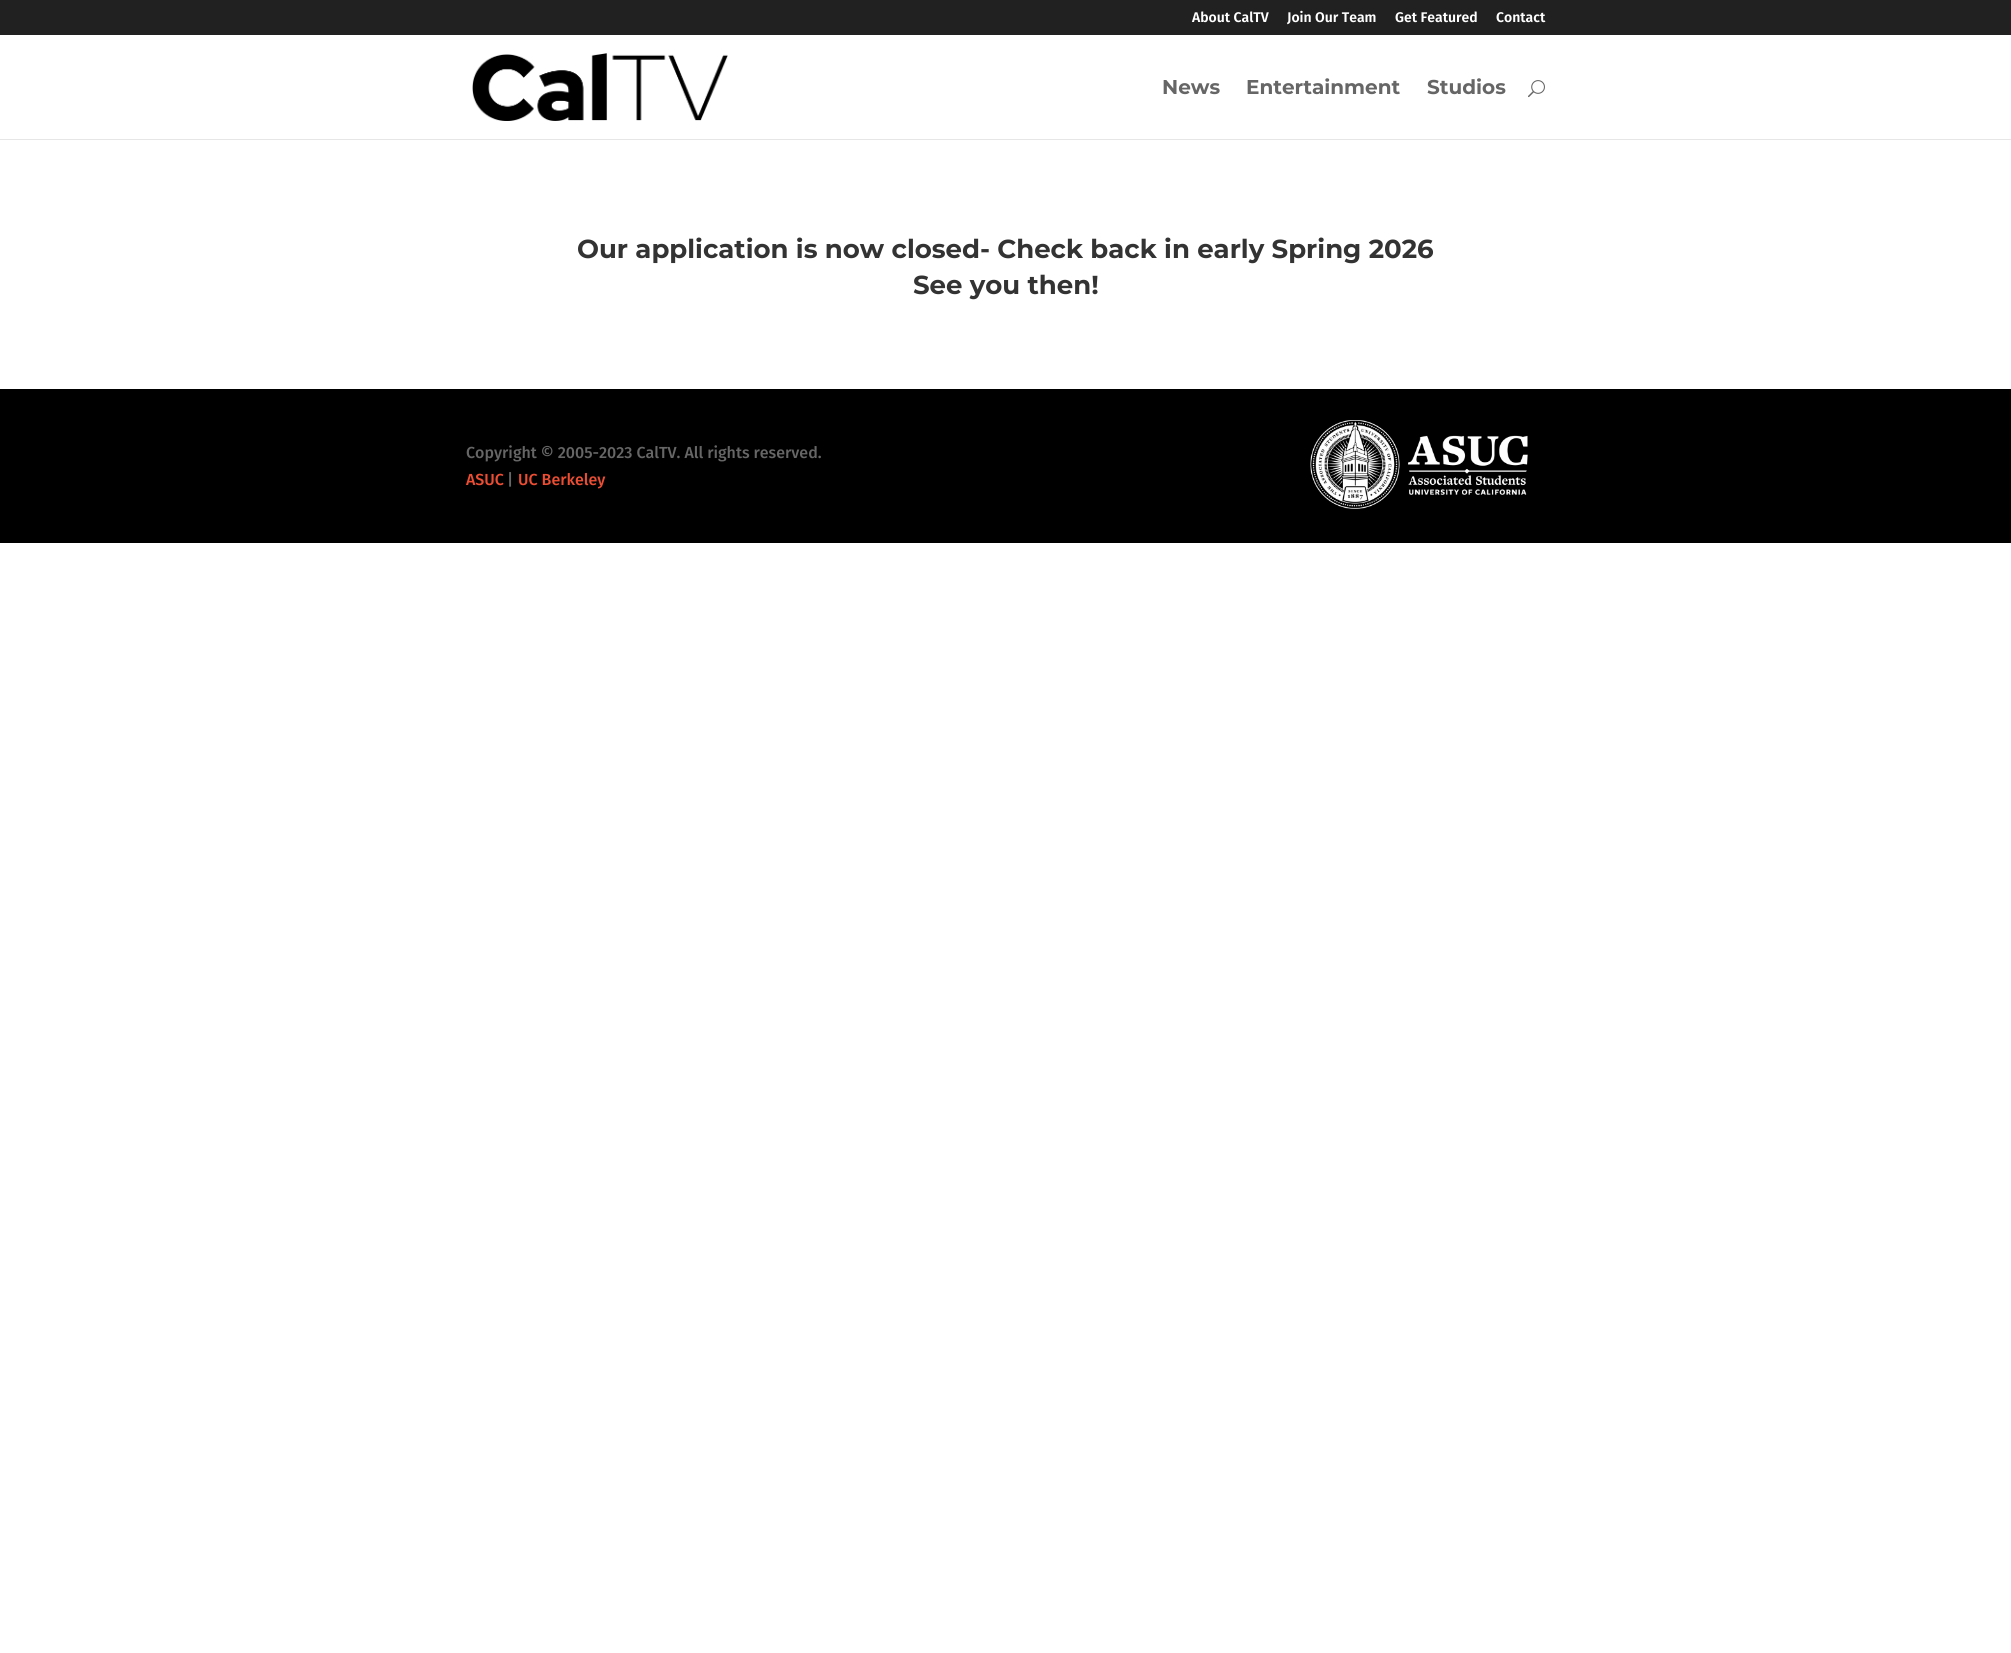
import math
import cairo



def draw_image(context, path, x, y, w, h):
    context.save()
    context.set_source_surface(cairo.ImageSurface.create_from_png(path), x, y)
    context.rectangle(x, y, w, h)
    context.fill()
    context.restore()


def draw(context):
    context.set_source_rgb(1, 1, 1)
    context.paint()
    context.set_source_rgb(33 / 255, 33 / 255, 33 / 255)
    context.rectangle(0, 0, 2011, 35)
    context.fill()
    context.set_source_rgb(230 / 255, 230 / 255, 230 / 255)
    context.rectangle(0, 139, 2011, 1)
    context.fill()
    draw_image(context, "images/1.png", 472, 53, 256, 68)
    draw_image(context, "images/2.png", 1528, 80, 17, 18)
    context.set_source_rgb(0, 0, 0)
    context.rectangle(0, 389, 2011, 154)
    context.fill()
    draw_image(context, "images/3.png", 1310, 420, 218, 89)
    context.select_font_face("Fira Sans SemiBold")
    context.set_font_size(14)
    context.set_source_rgb(1, 1, 1)
    context.move_to(1192, 22)
    context.show_text("About CalTV")
    context.move_to(1287, 22)
    context.show_text("Join Our Team")
    context.move_to(1395, 22)
    context.show_text("Get Featured")
    context.move_to(1496, 22)
    context.show_text("Contact")
    context.select_font_face("Montserrat", cairo.FontSlant.NORMAL, cairo.FontWeight.BOLD)
    context.set_font_size(20)
    context.set_source_rgb(102 / 255, 102 / 255, 102 / 255)
    context.move_to(1162, 94)
    context.show_text("News")
    context.move_to(1246, 94)
    context.show_text("Entertainment")
    context.move_to(1427, 94)
    context.show_text("Studios")
    context.set_font_size(26)
    context.set_source_rgb(51 / 255, 51 / 255, 51 / 255)
    context.move_to(577, 258)
    context.show_text("Our application is now closed- Check back in early Spring 2026")
    context.move_to(913, 294)
    context.show_text("See you then!")
    context.select_font_face("Fira Sans Medium")
    context.set_font_size(16)
    context.set_source_rgb(102 / 255, 102 / 255, 102 / 255)
    context.move_to(466, 458)
    context.show_text("Copyright © 2005-2023 CalTV. All rights reserved.")
    context.set_source_rgb(237 / 255, 78 / 255, 51 / 255)
    context.move_to(466, 485)
    context.show_text("ASUC")
    context.set_source_rgb(102 / 255, 102 / 255, 102 / 255)
    context.move_to(507, 485)
    context.show_text("|")
    context.set_source_rgb(237 / 255, 78 / 255, 51 / 255)
    context.move_to(518, 485)
    context.show_text("UC Berkeley")


surface = cairo.ImageSurface(cairo.Format.RGB24, 2011, 1653)
context = cairo.Context(surface)
options = cairo.FontOptions()
options.set_hint_metrics(cairo.HintMetrics.OFF)
options.set_hint_style(cairo.HintStyle.NONE)
context.set_font_options(options)
context.set_miter_limit(4)
draw(context)
surface.write_to_png("out.png")
